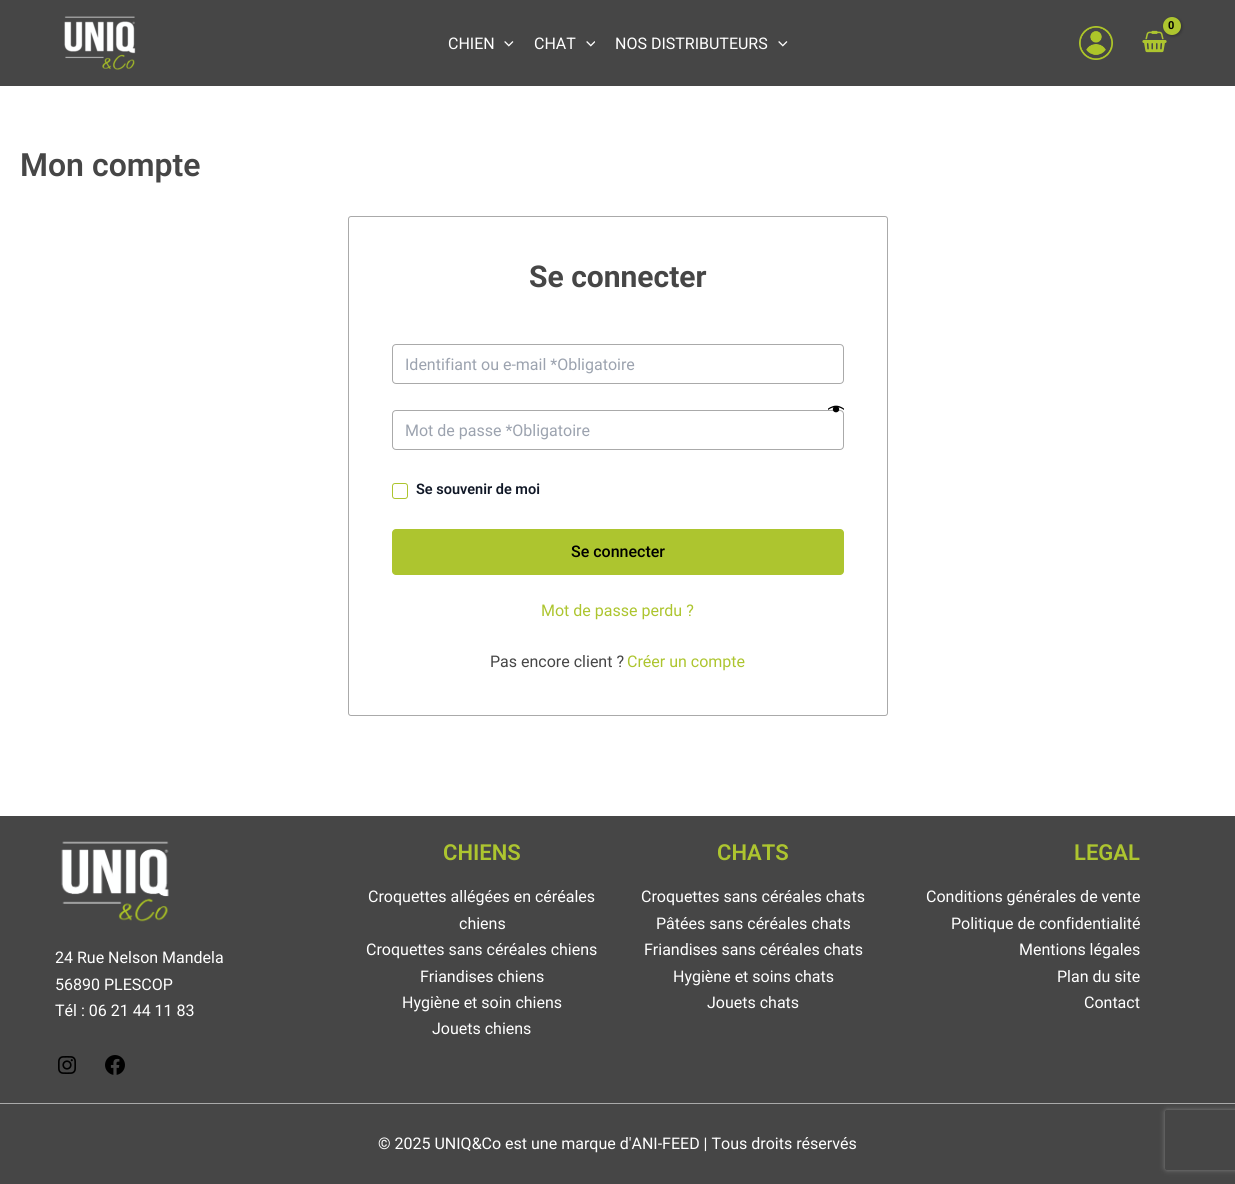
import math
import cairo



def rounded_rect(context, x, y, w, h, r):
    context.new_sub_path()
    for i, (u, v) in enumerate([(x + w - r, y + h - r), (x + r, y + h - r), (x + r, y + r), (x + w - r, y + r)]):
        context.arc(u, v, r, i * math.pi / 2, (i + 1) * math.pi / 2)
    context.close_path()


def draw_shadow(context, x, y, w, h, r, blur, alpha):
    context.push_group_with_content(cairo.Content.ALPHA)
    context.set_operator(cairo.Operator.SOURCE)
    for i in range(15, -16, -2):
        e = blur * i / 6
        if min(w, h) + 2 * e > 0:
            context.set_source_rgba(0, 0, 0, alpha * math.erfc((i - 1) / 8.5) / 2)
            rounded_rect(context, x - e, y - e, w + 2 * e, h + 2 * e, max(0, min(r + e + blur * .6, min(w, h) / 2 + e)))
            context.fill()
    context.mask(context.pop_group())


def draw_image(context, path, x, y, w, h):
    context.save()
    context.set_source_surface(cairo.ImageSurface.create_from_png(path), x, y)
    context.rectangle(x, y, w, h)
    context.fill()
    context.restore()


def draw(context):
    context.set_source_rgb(1, 1, 1)
    context.paint()
    context.set_source_rgb(70 / 255, 70 / 255, 70 / 255)
    context.rectangle(0, 0, 1235, 86)
    context.fill()
    draw_image(context, "images/1.png", 64, 16, 72, 54)
    draw_image(context, "images/2.png", 1079, 26, 34, 34)
    draw_image(context, "images/3.png", 1142, 30, 25, 23)
    context.set_source_rgb(0, 0, 0)
    draw_shadow(context, 1164, 18, 18, 18, 9, 1.5, 0.3)
    context.set_source_rgb(173 / 255, 197 / 255, 47 / 255)
    context.arc(1172, 26, 9, 0, 2 * math.pi)
    context.fill()
    draw_image(context, "images/4.png", 504, 41, 10, 6)
    draw_image(context, "images/5.png", 586, 41, 9, 6)
    draw_image(context, "images/4.png", 778, 41, 10, 6)
    rounded_rect(context, 348.5, 216.5, 539, 499, 2.5)
    context.set_source_rgb(170 / 255, 170 / 255, 170 / 255)
    context.set_line_width(1)
    context.stroke()
    rounded_rect(context, 392.5, 344.5, 451, 39, 3.5)
    context.stroke()
    rounded_rect(context, 392.5, 410.5, 451, 39, 3.5)
    context.stroke()
    draw_image(context, "images/6.png", 828, 405, 16, 8)
    rounded_rect(context, 392.5, 483.5, 15, 15, 2.5)
    context.set_source_rgb(173 / 255, 197 / 255, 47 / 255)
    context.stroke()
    rounded_rect(context, 392, 529, 452, 46, 4)
    context.fill()
    context.set_source_rgb(70 / 255, 70 / 255, 70 / 255)
    context.rectangle(0, 816, 1235, 287)
    context.fill()
    draw_image(context, "images/7.png", 61, 841, 108, 81)
    draw_image(context, "images/8.png", 58, 1056, 18, 18)
    draw_image(context, "images/9.png", 105, 1055, 20, 20)
    context.rectangle(0, 1104, 1235, 80)
    context.fill()
    context.set_source_rgb(170 / 255, 170 / 255, 170 / 255)
    context.rectangle(0, 1103, 1235, 1)
    context.fill()
    context.save()
    context.set_fill_rule(cairo.FillRule.EVEN_ODD)
    context.new_path()
    context.move_to(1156, 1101)
    context.line_to(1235, 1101)
    context.line_to(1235, 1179)
    context.line_to(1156, 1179)
    context.close_path()
    context.move_to(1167, 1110)
    context.line_to(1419, 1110)
    context.curve_to(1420, 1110, 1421, 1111, 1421, 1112)
    context.line_to(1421, 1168)
    context.curve_to(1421, 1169, 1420, 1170, 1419, 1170)
    context.line_to(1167, 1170)
    context.curve_to(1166, 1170, 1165, 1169, 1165, 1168)
    context.line_to(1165, 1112)
    context.curve_to(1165, 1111, 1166, 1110, 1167, 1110)
    context.close_path()
    context.clip()
    context.set_source_rgb(128 / 255, 128 / 255, 128 / 255)
    draw_shadow(context, 1165, 1110, 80, 60, 2, 2.5, 1)
    context.restore()
    context.select_font_face("Roboto", cairo.FontSlant.NORMAL, cairo.FontWeight.BOLD)
    context.set_font_size(11)
    context.set_source_rgb(0, 0, 0)
    context.move_to(1168, 29)
    context.show_text("0")
    context.select_font_face("Roboto")
    context.set_font_size(16)
    context.set_source_rgb(1, 1, 1)
    context.move_to(448, 49)
    context.show_text("CHIEN")
    context.move_to(534, 49)
    context.show_text("CHAT")
    context.move_to(615, 49)
    context.show_text("NOS DISTRIBUTEURS")
    context.select_font_face("Roboto SemiBold")
    context.set_font_size(32)
    context.set_source_rgb(70 / 255, 70 / 255, 70 / 255)
    context.move_to(20, 176)
    context.show_text("Mon compte")
    context.select_font_face("Roboto", cairo.FontSlant.NORMAL, cairo.FontWeight.BOLD)
    context.set_font_size(30)
    context.move_to(529, 287)
    context.show_text("Se connecter")
    context.select_font_face("Roboto")
    context.set_font_size(16)
    context.set_source_rgb(156 / 255, 163 / 255, 175 / 255)
    context.move_to(405, 370)
    context.show_text("Identifiant ou e-mail *Obligatoire")
    context.move_to(405, 436)
    context.show_text("Mot de passe *Obligatoire")
    context.select_font_face("Roboto SemiBold")
    context.set_font_size(14.5)
    context.set_source_rgb(17 / 255, 24 / 255, 39 / 255)
    context.move_to(416, 494)
    context.show_text("Se souvenir de moi")
    context.select_font_face("Roboto Medium")
    context.set_font_size(16)
    context.set_source_rgb(0, 0, 0)
    context.move_to(571, 557)
    context.show_text("Se connecter")
    context.select_font_face("Roboto")
    context.set_source_rgb(173 / 255, 197 / 255, 47 / 255)
    context.move_to(541, 616)
    context.show_text("Mot de passe perdu ?")
    context.set_source_rgb(70 / 255, 70 / 255, 70 / 255)
    context.move_to(490, 667)
    context.show_text("Pas encore client ?")
    context.set_source_rgb(173 / 255, 197 / 255, 47 / 255)
    context.move_to(627, 667)
    context.show_text("Créer un compte")
    context.set_source_rgb(1, 1, 1)
    context.move_to(55, 963)
    context.show_text("24 Rue Nelson Mandela")
    context.move_to(55, 990)
    context.show_text("56890 PLESCOP")
    context.move_to(55, 1016)
    context.show_text("Tél : 06 21 44 11 83")
    context.select_font_face("Roboto SemiBold")
    context.set_font_size(22)
    context.set_source_rgb(173 / 255, 197 / 255, 47 / 255)
    context.move_to(443, 860)
    context.show_text("CHIENS")
    context.select_font_face("Roboto")
    context.set_font_size(16)
    context.set_source_rgb(1, 1, 1)
    context.move_to(368, 902)
    context.show_text("Croquettes allégées en céréales")
    context.move_to(459, 929)
    context.show_text("chiens")
    context.move_to(366, 955)
    context.show_text("Croquettes sans céréales chiens")
    context.move_to(420, 982)
    context.show_text("Friandises chiens")
    context.move_to(402, 1008)
    context.show_text("Hygiène et soin chiens")
    context.move_to(432, 1034)
    context.show_text("Jouets chiens")
    context.select_font_face("Roboto SemiBold")
    context.set_font_size(22)
    context.set_source_rgb(173 / 255, 197 / 255, 47 / 255)
    context.move_to(717, 860)
    context.show_text("CHATS")
    context.select_font_face("Roboto")
    context.set_font_size(16)
    context.set_source_rgb(1, 1, 1)
    context.move_to(641, 902)
    context.show_text("Croquettes sans céréales chats")
    context.move_to(656, 929)
    context.show_text("Pâtées sans céréales chats")
    context.move_to(644, 955)
    context.show_text("Friandises sans céréales chats")
    context.move_to(673, 982)
    context.show_text("Hygiène et soins chats")
    context.move_to(707, 1008)
    context.show_text("Jouets chats")
    context.select_font_face("Roboto SemiBold")
    context.set_font_size(22)
    context.set_source_rgb(173 / 255, 197 / 255, 47 / 255)
    context.move_to(1074, 860)
    context.show_text("LEGAL")
    context.select_font_face("Roboto")
    context.set_font_size(16)
    context.set_source_rgb(1, 1, 1)
    context.move_to(926, 902)
    context.show_text("Conditions générales de vente")
    context.move_to(951, 929)
    context.show_text("Politique de confidentialité")
    context.move_to(1019, 955)
    context.show_text("Mentions légales")
    context.move_to(1057, 982)
    context.show_text("Plan du site")
    context.move_to(1084, 1008)
    context.show_text("Contact")
    context.move_to(378, 1149)
    context.show_text("© 2025 UNIQ&Co est une marque d'ANI-FEED | Tous droits réservés")


surface = cairo.ImageSurface(cairo.Format.RGB24, 1235, 1184)
context = cairo.Context(surface)
options = cairo.FontOptions()
options.set_hint_metrics(cairo.HintMetrics.OFF)
options.set_hint_style(cairo.HintStyle.NONE)
context.set_font_options(options)
context.set_miter_limit(4)
draw(context)
surface.write_to_png("out.png")
